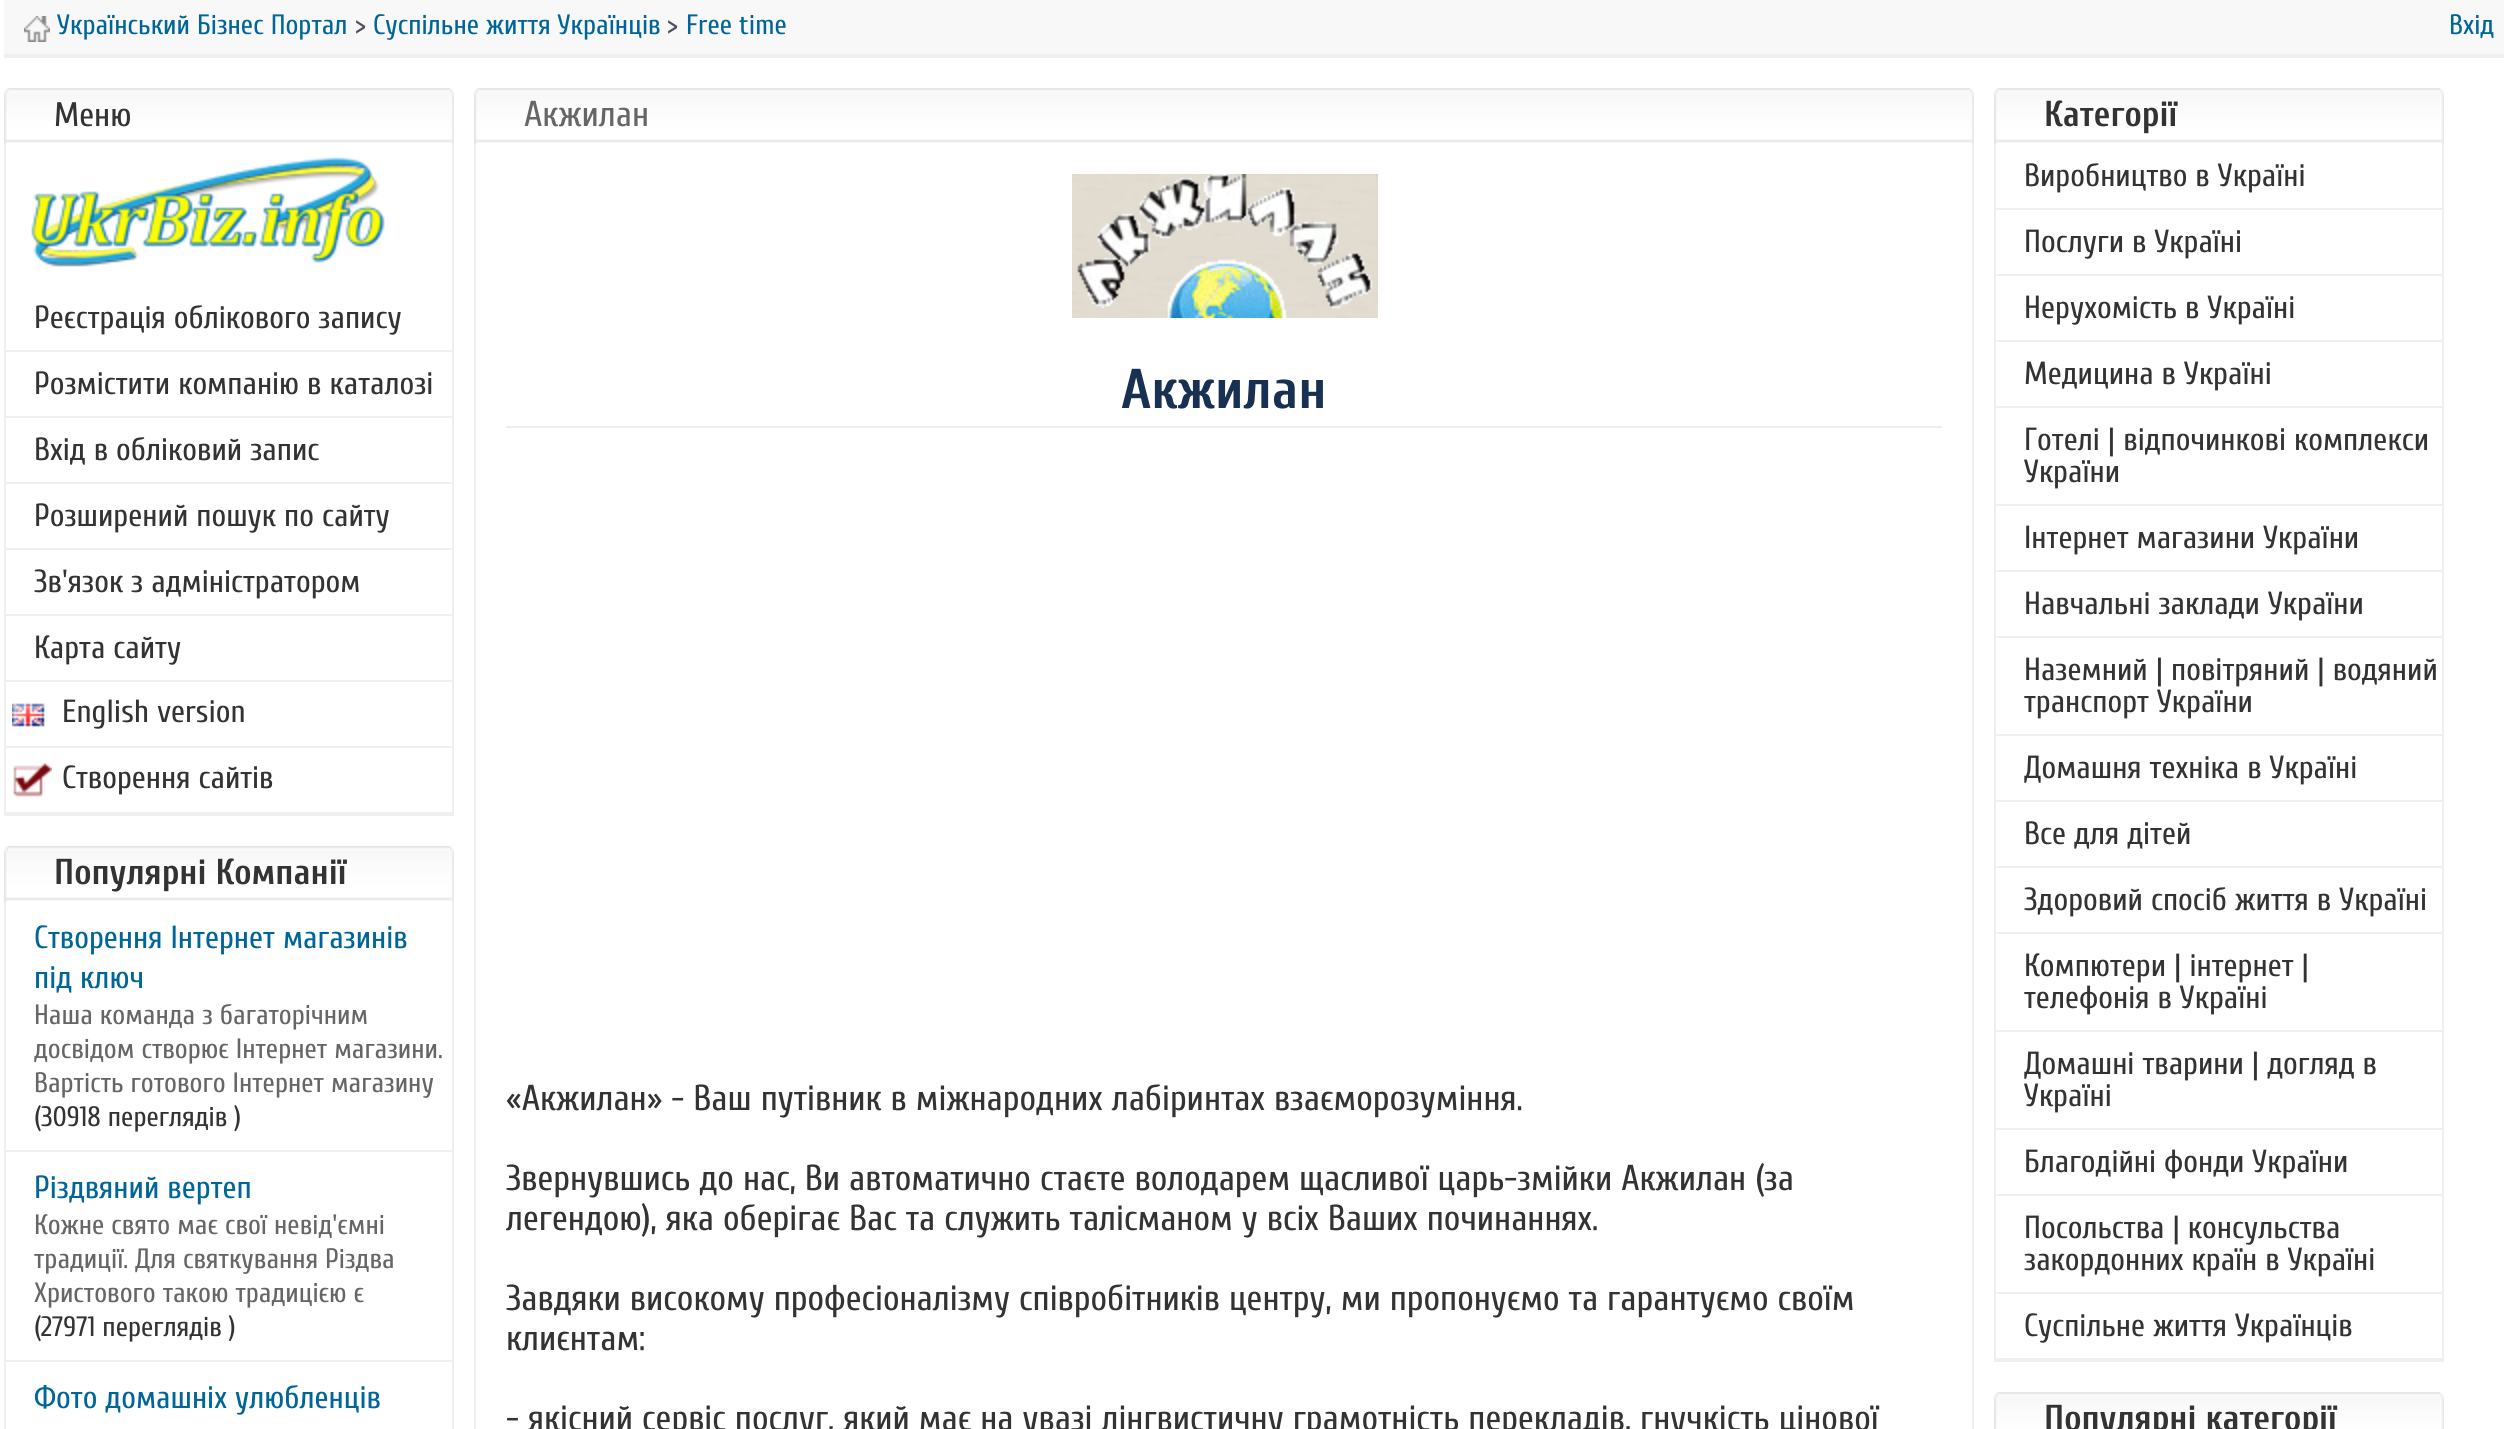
import math
import cairo



def draw_image(context, path, x, y, w, h):
    context.save()
    context.set_source_surface(cairo.ImageSurface.create_from_png(path), x, y)
    context.rectangle(x, y, w, h)
    context.fill()
    context.restore()


def draw(context):
    context.set_source_rgb(1, 1, 1)
    context.paint()
    context.set_source_rgb(239 / 255, 239 / 255, 239 / 255)
    context.rectangle(4, 54, 2500, 4)
    context.fill()
    context.set_source_rgb(248 / 255, 248 / 255, 248 / 255)
    context.rectangle(4, 0, 2500, 54)
    context.fill()
    draw_image(context, "images/1.png", 24, 16, 26, 26)
    draw_image(context, "images/2.png", 4, 88, 446, 56)
    draw_image(context, "images/3.png", 450, 88, 4, 56)
    context.set_source_rgb(239 / 255, 239 / 255, 239 / 255)
    context.rectangle(452, 144, 2, 672)
    context.fill()
    context.rectangle(4, 814, 450, 2)
    context.fill()
    context.rectangle(4, 144, 2, 672)
    context.fill()
    draw_image(context, "images/4.png", 31, 157, 354, 110)
    context.rectangle(6, 350, 446, 2)
    context.fill()
    context.rectangle(6, 416, 446, 2)
    context.fill()
    context.rectangle(6, 482, 446, 2)
    context.fill()
    context.rectangle(6, 548, 446, 2)
    context.fill()
    context.rectangle(6, 614, 446, 2)
    context.fill()
    context.rectangle(6, 680, 446, 2)
    context.fill()
    context.rectangle(6, 746, 446, 2)
    context.fill()
    draw_image(context, "images/5.png", 12, 703, 33, 24)
    context.rectangle(6, 812, 446, 2)
    context.fill()
    draw_image(context, "images/6.png", 13, 763, 39, 34)
    draw_image(context, "images/2.png", 4, 846, 446, 56)
    draw_image(context, "images/3.png", 450, 846, 4, 56)
    context.rectangle(452, 902, 2, 527)
    context.fill()
    context.rectangle(4, 902, 2, 527)
    context.fill()
    context.rectangle(6, 1150, 446, 2)
    context.fill()
    context.rectangle(6, 1360, 446, 2)
    context.fill()
    draw_image(context, "images/7.png", 474, 88, 1496, 56)
    draw_image(context, "images/3.png", 1970, 88, 4, 56)
    context.rectangle(1972, 144, 2, 1285)
    context.fill()
    context.rectangle(474, 144, 2, 1285)
    context.fill()
    draw_image(context, "images/8.png", 1072, 174, 306, 144)
    context.set_source_rgb(238 / 255, 238 / 255, 238 / 255)
    context.rectangle(506, 426, 1436, 2)
    context.fill()
    draw_image(context, "images/2.png", 1994, 88, 446, 56)
    draw_image(context, "images/3.png", 2440, 88, 4, 56)
    context.set_source_rgb(239 / 255, 239 / 255, 239 / 255)
    context.rectangle(2442, 144, 2, 1218)
    context.fill()
    context.rectangle(1994, 1360, 450, 2)
    context.fill()
    context.rectangle(1994, 144, 2, 1218)
    context.fill()
    context.rectangle(1996, 208, 446, 2)
    context.fill()
    context.rectangle(1996, 274, 446, 2)
    context.fill()
    context.rectangle(1996, 340, 446, 2)
    context.fill()
    context.rectangle(1996, 406, 446, 2)
    context.fill()
    context.rectangle(1996, 504, 446, 2)
    context.fill()
    context.rectangle(1996, 570, 446, 2)
    context.fill()
    context.rectangle(1996, 636, 446, 2)
    context.fill()
    context.rectangle(1996, 734, 446, 2)
    context.fill()
    context.rectangle(1996, 800, 446, 2)
    context.fill()
    context.rectangle(1996, 866, 446, 2)
    context.fill()
    context.rectangle(1996, 932, 446, 2)
    context.fill()
    context.rectangle(1996, 1030, 446, 2)
    context.fill()
    context.rectangle(1996, 1128, 446, 2)
    context.fill()
    context.rectangle(1996, 1194, 446, 2)
    context.fill()
    context.rectangle(1996, 1292, 446, 2)
    context.fill()
    context.rectangle(1996, 1358, 446, 2)
    context.fill()
    draw_image(context, "images/9.png", 1994, 1392, 446, 37)
    draw_image(context, "images/10.png", 2440, 1392, 4, 37)
    context.select_font_face("Cuprum")
    context.set_font_size(28)
    context.set_source_rgb(0, 102 / 255, 153 / 255)
    context.move_to(57, 34)
    context.show_text("Український Бізнес Портал")
    context.set_source_rgb(82 / 255, 81 / 255, 99 / 255)
    context.move_to(355, 34)
    context.show_text(">")
    context.set_source_rgb(0, 102 / 255, 153 / 255)
    context.move_to(373, 34)
    context.show_text("Суспільне життя Українців")
    context.set_source_rgb(82 / 255, 81 / 255, 99 / 255)
    context.move_to(667, 34)
    context.show_text(">")
    context.set_source_rgb(0, 102 / 255, 153 / 255)
    context.move_to(686, 34)
    context.show_text("Free time")
    context.move_to(2449, 34)
    context.show_text("Вхід")
    context.set_font_size(34)
    context.set_source_rgb(51 / 255, 51 / 255, 51 / 255)
    context.move_to(54, 126)
    context.show_text("Меню")
    context.set_font_size(32)
    context.move_to(34, 328)
    context.show_text("Реєстрація облікового запису")
    context.move_to(34, 394)
    context.show_text("Розмістити компанію в каталозі")
    context.move_to(34, 460)
    context.show_text("Вхід в обліковий запис")
    context.move_to(34, 526)
    context.show_text("Розширений пошук по сайту")
    context.move_to(34, 592)
    context.show_text("Зв'язок з адміністратором")
    context.move_to(34, 658)
    context.show_text("Карта сайту")
    context.move_to(62, 722)
    context.show_text("English version")
    context.move_to(62, 788)
    context.show_text("Створення сайтів")
    context.select_font_face("Cuprum", cairo.FontSlant.NORMAL, cairo.FontWeight.BOLD)
    context.set_font_size(36)
    context.move_to(54, 884)
    context.show_text("Популярні Компанії")
    context.select_font_face("Cuprum")
    context.set_font_size(32)
    context.set_source_rgb(0, 102 / 255, 153 / 255)
    context.move_to(34, 948)
    context.show_text("Створення Інтернет магазинів")
    context.move_to(34, 988)
    context.show_text("під ключ")
    context.set_font_size(28)
    context.set_source_rgb(102 / 255, 102 / 255, 102 / 255)
    context.move_to(34, 1024)
    context.show_text("Наша команда з багаторічним")
    context.move_to(34, 1058)
    context.show_text("досвідом створює Інтернет магазини.")
    context.move_to(34, 1092)
    context.show_text("Вартість готового Інтернет магазину")
    context.set_source_rgb(51 / 255, 51 / 255, 51 / 255)
    context.move_to(34, 1126)
    context.show_text("(30918 переглядів )")
    context.set_font_size(32)
    context.set_source_rgb(0, 102 / 255, 153 / 255)
    context.move_to(34, 1198)
    context.show_text("Різдвяний вертеп")
    context.set_font_size(28)
    context.set_source_rgb(102 / 255, 102 / 255, 102 / 255)
    context.move_to(34, 1234)
    context.show_text("Кожне свято має свої невід'ємні")
    context.move_to(34, 1268)
    context.show_text("традиції. Для святкування Різдва")
    context.move_to(34, 1302)
    context.show_text("Христового такою традицією є")
    context.set_source_rgb(51 / 255, 51 / 255, 51 / 255)
    context.move_to(34, 1336)
    context.show_text("(27971 переглядів )")
    context.set_font_size(32)
    context.set_source_rgb(0, 102 / 255, 153 / 255)
    context.move_to(34, 1408)
    context.show_text("Фото домашніх улюбленців")
    context.set_font_size(36)
    context.set_source_rgb(102 / 255, 102 / 255, 102 / 255)
    context.move_to(524, 126)
    context.show_text("Акжилан")
    context.select_font_face("Cuprum", cairo.FontSlant.NORMAL, cairo.FontWeight.BOLD)
    context.set_font_size(56)
    context.set_source_rgb(24 / 255, 49 / 255, 82 / 255)
    context.move_to(1121, 408)
    context.show_text("Акжилан")
    context.select_font_face("Cuprum")
    context.set_font_size(36)
    context.set_source_rgb(51 / 255, 51 / 255, 51 / 255)
    context.move_to(506, 1110)
    context.show_text("«Акжилан» - Ваш путівник в міжнародних лабіринтах взаєморозуміння.")
    context.move_to(506, 1190)
    context.show_text("Звернувшись до нас, Ви автоматично стаєте володарем щасливої царь-змійки Акжилан (за")
    context.move_to(506, 1230)
    context.show_text("легендою), яка оберігає Вас та служить талісманом у всіх Ваших починаннях.")
    context.move_to(506, 1310)
    context.show_text("Завдяки високому професіоналізму співробітників центру, ми пропонуємо та гарантуємо своїм")
    context.move_to(506, 1350)
    context.show_text("клиєнтам:")
    context.move_to(506, 1430)
    context.show_text("- якісний сервіс послуг, який має на увазі лінгвистичну грамотність перекладів, гнучкість цінової")
    context.select_font_face("Cuprum", cairo.FontSlant.NORMAL, cairo.FontWeight.BOLD)
    context.move_to(2044, 126)
    context.show_text("Категорії")
    context.select_font_face("Cuprum")
    context.set_font_size(32)
    context.move_to(2024, 186)
    context.show_text("Виробництво в Україні")
    context.move_to(2024, 252)
    context.show_text("Послуги в Україні")
    context.move_to(2024, 318)
    context.show_text("Нерухомість в Україні")
    context.move_to(2024, 384)
    context.show_text("Медицина в Україні")
    context.move_to(2024, 450)
    context.show_text("Готелі | відпочинкові комплекси")
    context.move_to(2024, 482)
    context.show_text("України")
    context.move_to(2024, 548)
    context.show_text("Інтернет магазини України")
    context.move_to(2024, 614)
    context.show_text("Навчальні заклади України")
    context.move_to(2024, 680)
    context.show_text("Наземний | повітряний | водяний")
    context.move_to(2024, 712)
    context.show_text("транспорт України")
    context.move_to(2024, 778)
    context.show_text("Домашня техніка в Україні")
    context.move_to(2024, 844)
    context.show_text("Все для дітей")
    context.move_to(2024, 910)
    context.show_text("Здоровий спосіб життя в Україні")
    context.move_to(2024, 976)
    context.show_text("Компютери | інтернет |")
    context.move_to(2024, 1008)
    context.show_text("телефонія в Україні")
    context.move_to(2024, 1074)
    context.show_text("Домашні тварини | догляд в")
    context.move_to(2024, 1106)
    context.show_text("Україні")
    context.move_to(2024, 1172)
    context.show_text("Благодійні фонди України")
    context.move_to(2024, 1238)
    context.show_text("Посольства | консульства")
    context.move_to(2024, 1270)
    context.show_text("закордонних країн в Україні")
    context.move_to(2024, 1336)
    context.show_text("Суспільне життя Українців")
    context.select_font_face("Cuprum", cairo.FontSlant.NORMAL, cairo.FontWeight.BOLD)
    context.set_font_size(36)
    context.move_to(2044, 1430)
    context.show_text("Популярні категорії")


surface = cairo.ImageSurface(cairo.Format.RGB24, 2508, 1429)
context = cairo.Context(surface)
options = cairo.FontOptions()
options.set_hint_metrics(cairo.HintMetrics.OFF)
options.set_hint_style(cairo.HintStyle.NONE)
context.set_font_options(options)
context.set_miter_limit(4)
draw(context)
surface.write_to_png("out.png")
